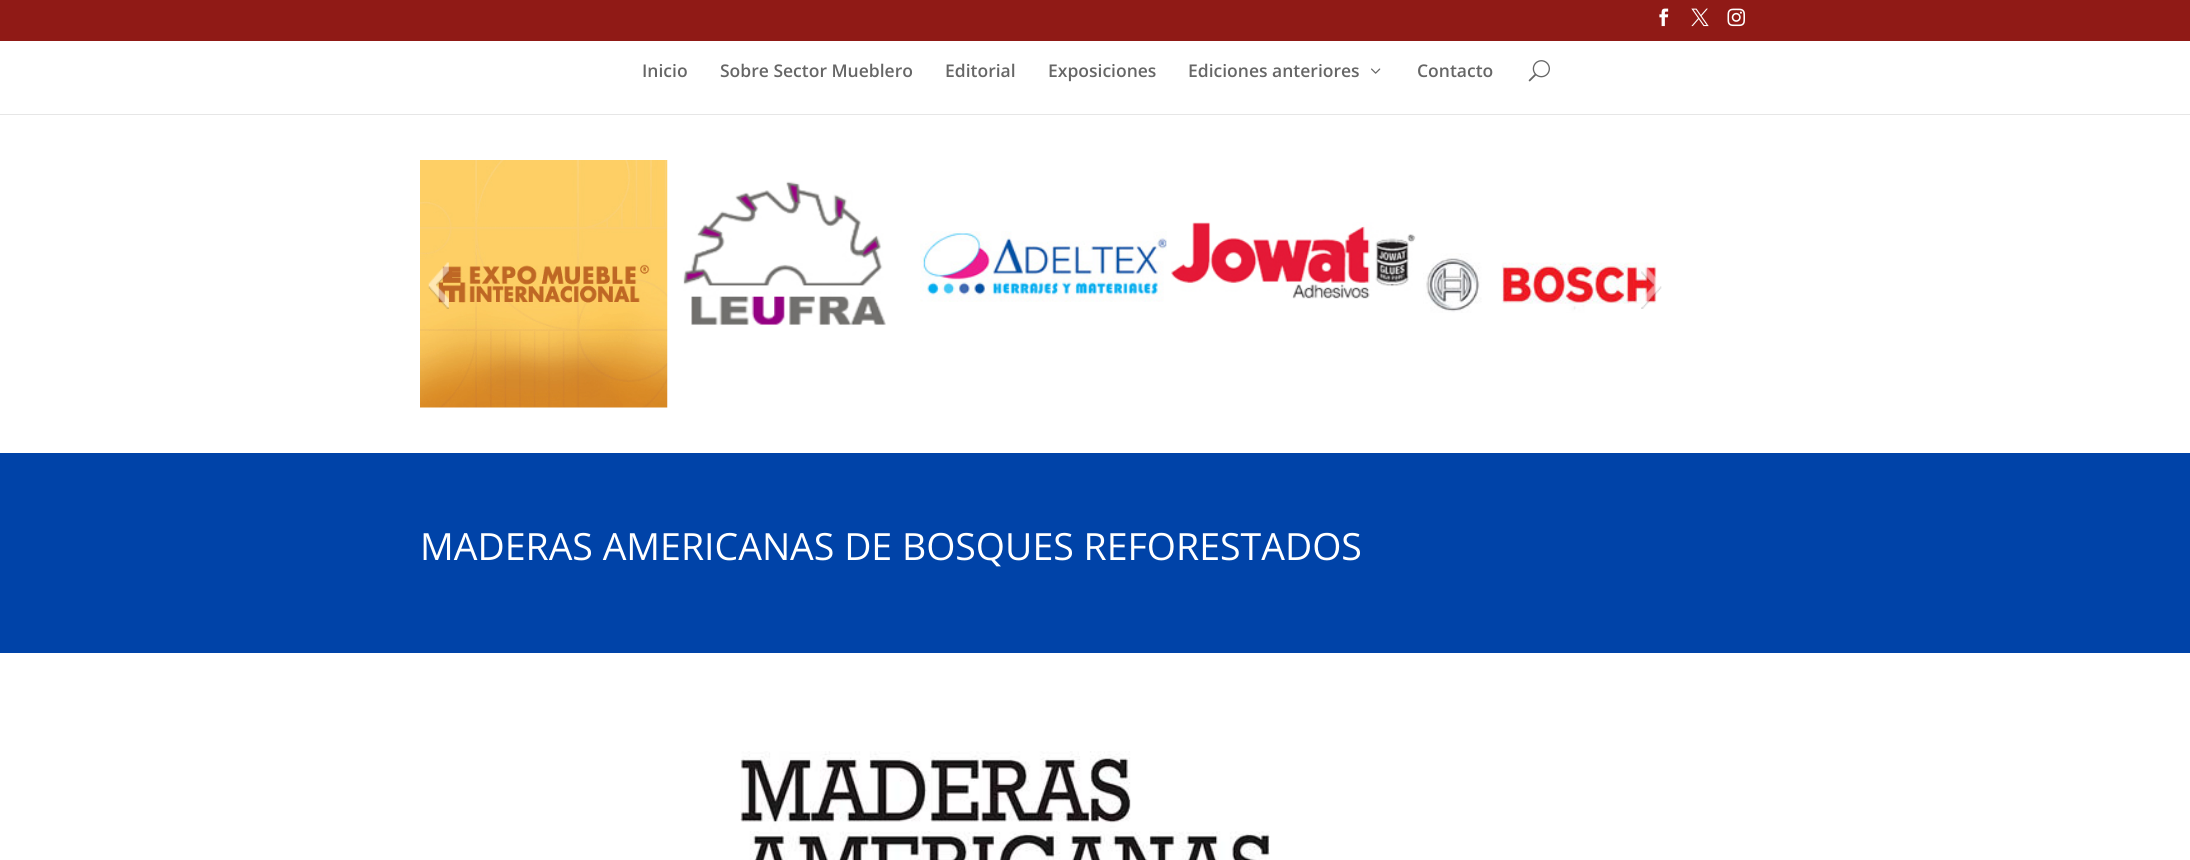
import math
import cairo



def draw_image(context, path, x, y, w, h):
    context.save()
    context.set_source_surface(cairo.ImageSurface.create_from_png(path), x, y)
    context.rectangle(x, y, w, h)
    context.fill()
    context.restore()


def draw(context):
    context.set_source_rgb(1, 1, 1)
    context.paint()
    context.set_source_rgb(144 / 255, 26 / 255, 22 / 255)
    context.rectangle(0, 0, 2190, 41)
    context.fill()
    draw_image(context, "images/1.png", 1659, 8, 10, 19)
    draw_image(context, "images/2.png", 1691, 8, 18, 19)
    draw_image(context, "images/3.png", 1727, 8, 18, 19)
    context.set_source_rgb(230 / 255, 230 / 255, 230 / 255)
    context.rectangle(0, 114, 2190, 1)
    context.fill()
    draw_image(context, "images/4.png", 1371, 68, 10, 6)
    draw_image(context, "images/5.png", 1528, 60, 22, 22)
    draw_image(context, "images/6.png", 420, 160, 248, 248)
    draw_image(context, "images/7.png", 683, 181, 203, 146)
    draw_image(context, "images/8.png", 920, 231, 247, 71)
    draw_image(context, "images/9.png", 1171, 222, 245, 77)
    draw_image(context, "images/10.png", 1423, 253, 234, 60)
    draw_image(context, "images/11.png", 428, 262, 21, 47)
    draw_image(context, "images/12.png", 1641, 263, 21, 46)
    context.set_source_rgb(0, 67 / 255, 168 / 255)
    context.rectangle(0, 453, 2190, 200)
    context.fill()
    draw_image(context, "images/13.png", 740, 751, 530, 109)
    context.select_font_face("Open Sans SemiBold")
    context.set_font_size(17.5)
    context.set_source_rgb(102 / 255, 102 / 255, 102 / 255)
    context.move_to(642, 77)
    context.show_text("Inicio")
    context.move_to(720, 77)
    context.show_text("Sobre Sector Mueblero")
    context.move_to(945, 77)
    context.show_text("Editorial")
    context.move_to(1048, 77)
    context.show_text("Exposiciones")
    context.move_to(1188, 77)
    context.show_text("Ediciones anteriores")
    context.move_to(1417, 77)
    context.show_text("Contacto")
    context.select_font_face("Open Sans")
    context.set_font_size(37.5)
    context.set_source_rgb(1, 1, 1)
    context.move_to(420, 560)
    context.show_text("MADERAS AMERICANAS DE BOSQUES REFORESTADOS")


surface = cairo.ImageSurface(cairo.Format.RGB24, 2190, 860)
context = cairo.Context(surface)
options = cairo.FontOptions()
options.set_hint_metrics(cairo.HintMetrics.OFF)
options.set_hint_style(cairo.HintStyle.NONE)
context.set_font_options(options)
context.set_miter_limit(4)
draw(context)
surface.write_to_png("out.png")
